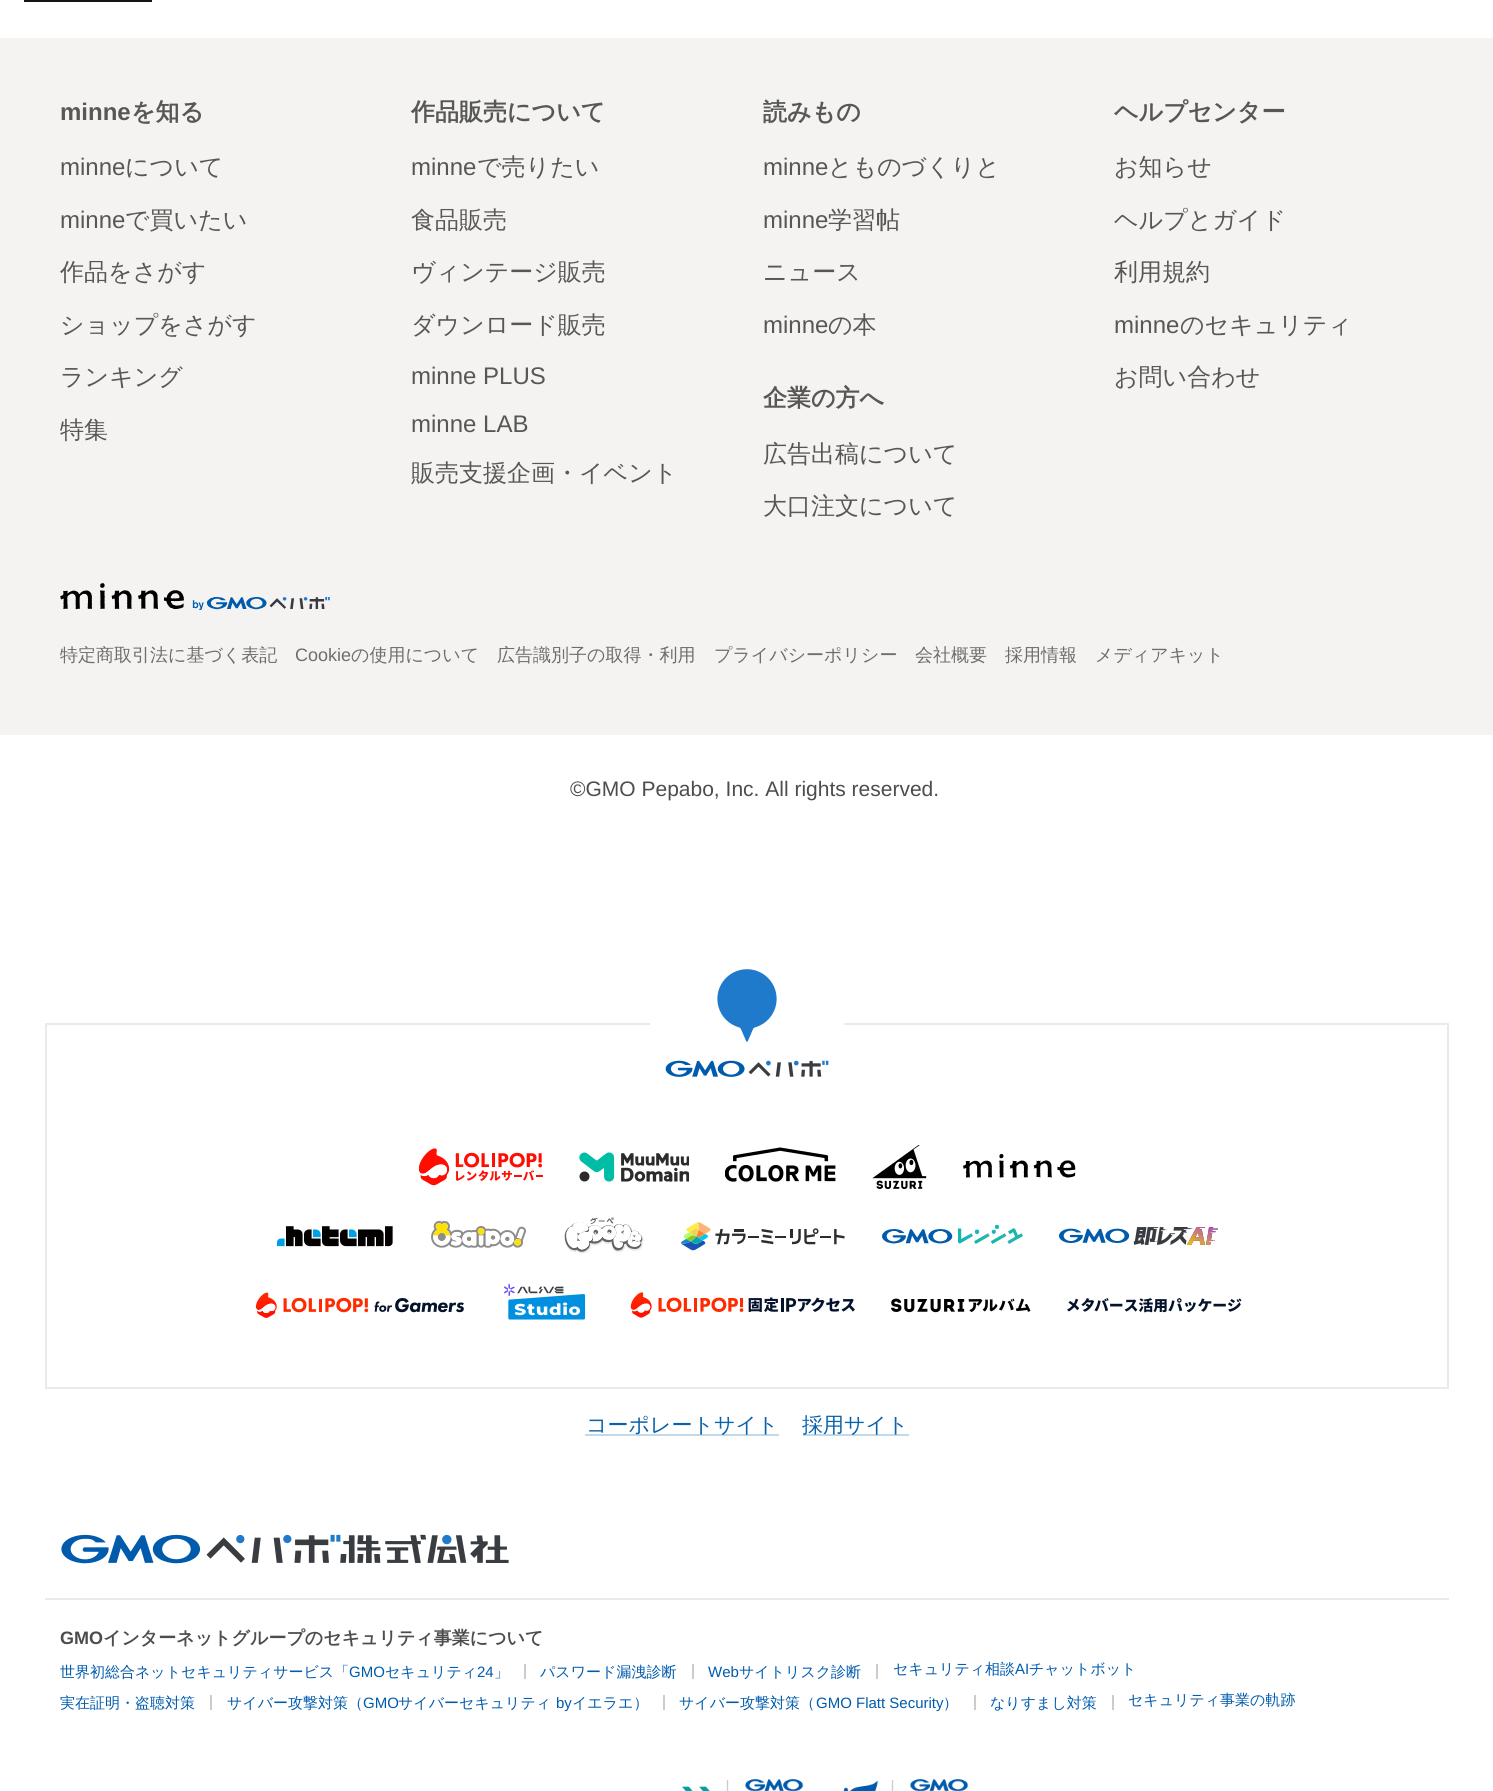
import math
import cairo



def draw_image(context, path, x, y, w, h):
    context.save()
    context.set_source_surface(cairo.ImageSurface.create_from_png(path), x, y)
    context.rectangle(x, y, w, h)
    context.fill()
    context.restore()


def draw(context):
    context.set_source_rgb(1, 1, 1)
    context.paint()
    context.set_source_rgb(20 / 255, 20 / 255, 20 / 255)
    context.rectangle(24, 0, 128, 2)
    context.fill()
    context.set_source_rgb(244 / 255, 243 / 255, 242 / 255)
    context.rectangle(0, 38, 1493, 697)
    context.fill()
    draw_image(context, "images/1.png", 60, 583, 270, 27)
    context.rectangle(46, 1024, 1402, 364)
    context.set_source_rgb(234 / 255, 234 / 255, 234 / 255)
    context.stroke()
    draw_image(context, "images/2.png", 650, 969, 194, 108)
    draw_image(context, "images/3.png", 419, 1148, 124, 38)
    draw_image(context, "images/4.png", 579, 1152, 110, 30)
    draw_image(context, "images/5.png", 725, 1147, 111, 35)
    draw_image(context, "images/6.png", 872, 1145, 55, 45)
    draw_image(context, "images/7.png", 963, 1154, 113, 24)
    draw_image(context, "images/8.png", 276, 1226, 117, 21)
    draw_image(context, "images/9.png", 431, 1221, 95, 27)
    draw_image(context, "images/10.png", 564, 1217, 80, 37)
    draw_image(context, "images/11.png", 681, 1222, 164, 29)
    draw_image(context, "images/12.png", 882, 1224, 141, 20)
    draw_image(context, "images/13.png", 1059, 1227, 159, 18)
    draw_image(context, "images/14.png", 255, 1292, 209, 26)
    draw_image(context, "images/15.png", 504, 1283, 82, 37)
    draw_image(context, "images/16.png", 630, 1292, 225, 26)
    draw_image(context, "images/17.png", 891, 1298, 140, 15)
    draw_image(context, "images/18.png", 1067, 1298, 175, 15)
    context.set_source_rgb(194 / 255, 216 / 255, 235 / 255)
    context.rectangle(585, 1434, 194, 2)
    context.fill()
    context.rectangle(803, 1434, 106, 2)
    context.fill()
    draw_image(context, "images/19.png", 61, 1534, 448, 30)
    context.set_source_rgb(234 / 255, 234 / 255, 234 / 255)
    context.rectangle(45, 1598, 1404, 2)
    context.fill()
    context.set_source_rgb(204 / 255, 204 / 255, 204 / 255)
    context.rectangle(524, 1664, 2, 15)
    context.fill()
    context.rectangle(692, 1664, 2, 15)
    context.fill()
    context.rectangle(876, 1664, 2, 15)
    context.fill()
    context.rectangle(210, 1695, 2, 15)
    context.fill()
    context.rectangle(663, 1695, 2, 15)
    context.fill()
    context.rectangle(974, 1695, 2, 15)
    context.fill()
    context.rectangle(1112, 1695, 2, 15)
    context.fill()
    draw_image(context, "images/20.png", 682, 1779, 122, 12)
    draw_image(context, "images/21.png", 843, 1779, 126, 12)
    context.select_font_face("Liberation Sans", cairo.FontSlant.NORMAL, cairo.FontWeight.BOLD)
    context.set_font_size(24)
    context.set_source_rgb(87 / 255, 87 / 255, 86 / 255)
    context.move_to(60, 120)
    context.show_text("minne")
    context.select_font_face("WenQuanYi Zen Hei", cairo.FontSlant.NORMAL, cairo.FontWeight.BOLD)
    context.move_to(131, 120)
    context.show_text("を知る")
    context.select_font_face("Liberation Sans")
    context.move_to(60, 175)
    context.show_text("minne")
    context.select_font_face("WenQuanYi Zen Hei Medium")
    context.move_to(125, 175)
    context.show_text("について")
    context.select_font_face("Liberation Sans")
    context.move_to(60, 228)
    context.show_text("minne")
    context.select_font_face("WenQuanYi Zen Hei Medium")
    context.move_to(125, 228)
    context.show_text("で買いたい")
    context.move_to(60, 280)
    context.show_text("作品をさがす")
    context.move_to(60, 333)
    context.show_text("ショップをさがす")
    context.move_to(60, 385)
    context.show_text("ランキング")
    context.move_to(60, 438)
    context.show_text("特集")
    context.select_font_face("WenQuanYi Zen Hei", cairo.FontSlant.NORMAL, cairo.FontWeight.BOLD)
    context.move_to(411, 120)
    context.show_text("作品販売について")
    context.select_font_face("Liberation Sans")
    context.move_to(411, 175)
    context.show_text("minne")
    context.select_font_face("WenQuanYi Zen Hei Medium")
    context.move_to(477, 175)
    context.show_text("で売りたい")
    context.move_to(411, 228)
    context.show_text("食品販売")
    context.move_to(411, 280)
    context.show_text("ヴィンテージ販売")
    context.move_to(411, 333)
    context.show_text("ダウンロード販売")
    context.select_font_face("Liberation Sans")
    context.move_to(411, 384)
    context.show_text("minne PLUS")
    context.move_to(411, 432)
    context.show_text("minne LAB")
    context.select_font_face("WenQuanYi Zen Hei Medium")
    context.move_to(411, 481)
    context.show_text("販売支援企画・イベント")
    context.select_font_face("WenQuanYi Zen Hei", cairo.FontSlant.NORMAL, cairo.FontWeight.BOLD)
    context.move_to(763, 120)
    context.show_text("読みもの")
    context.select_font_face("Liberation Sans")
    context.move_to(763, 175)
    context.show_text("minne")
    context.select_font_face("WenQuanYi Zen Hei Medium")
    context.move_to(828, 175)
    context.show_text("とものづくりと")
    context.select_font_face("Liberation Sans")
    context.move_to(763, 228)
    context.show_text("minne")
    context.select_font_face("WenQuanYi Zen Hei Medium")
    context.move_to(828, 228)
    context.show_text("学習帖")
    context.move_to(763, 280)
    context.show_text("ニュース")
    context.select_font_face("Liberation Sans")
    context.move_to(763, 333)
    context.show_text("minne")
    context.select_font_face("WenQuanYi Zen Hei Medium")
    context.move_to(828, 333)
    context.show_text("の本")
    context.select_font_face("WenQuanYi Zen Hei", cairo.FontSlant.NORMAL, cairo.FontWeight.BOLD)
    context.move_to(763, 406)
    context.show_text("企業の方へ")
    context.select_font_face("WenQuanYi Zen Hei Medium")
    context.move_to(763, 462)
    context.show_text("広告出稿について")
    context.move_to(763, 514)
    context.show_text("大口注文について")
    context.select_font_face("WenQuanYi Zen Hei", cairo.FontSlant.NORMAL, cairo.FontWeight.BOLD)
    context.move_to(1114, 120)
    context.show_text("ヘルプセンター")
    context.select_font_face("WenQuanYi Zen Hei Medium")
    context.move_to(1114, 175)
    context.show_text("お知らせ")
    context.move_to(1114, 228)
    context.show_text("ヘルプとガイド")
    context.move_to(1114, 280)
    context.show_text("利用規約")
    context.select_font_face("Liberation Sans")
    context.move_to(1114, 333)
    context.show_text("minne")
    context.select_font_face("WenQuanYi Zen Hei Medium")
    context.move_to(1180, 333)
    context.show_text("のセキュリティ")
    context.move_to(1114, 385)
    context.show_text("お問い合わせ")
    context.set_font_size(18)
    context.set_source_rgb(110 / 255, 109 / 255, 109 / 255)
    context.move_to(60, 661)
    context.show_text("特定商取引法に基づく表記")
    context.select_font_face("Liberation Sans")
    context.move_to(295, 661)
    context.show_text("Cookie")
    context.select_font_face("WenQuanYi Zen Hei Medium")
    context.move_to(351, 661)
    context.show_text("の使用について")
    context.move_to(497, 661)
    context.show_text("広告識別子の取得・利用")
    context.move_to(714, 661)
    context.show_text("プライバシーポリシー")
    context.move_to(915, 661)
    context.show_text("会社概要")
    context.move_to(1005, 661)
    context.show_text("採用情報")
    context.move_to(1095, 661)
    context.show_text("メディアキット")
    context.select_font_face("Liberation Sans")
    context.set_font_size(21)
    context.set_source_rgb(77 / 255, 77 / 255, 77 / 255)
    context.move_to(570, 796)
    context.show_text("©GMO Pepabo, Inc. All rights reserved.")
    context.select_font_face("WenQuanYi Zen Hei Medium")
    context.set_source_rgb(10 / 255, 98 / 255, 173 / 255)
    context.move_to(586, 1432)
    context.show_text("コーポレートサイト")
    context.move_to(802, 1432)
    context.show_text("採用サイト")
    context.select_font_face("Liberation Sans", cairo.FontSlant.NORMAL, cairo.FontWeight.BOLD)
    context.set_font_size(18)
    context.set_source_rgb(77 / 255, 77 / 255, 77 / 255)
    context.move_to(60, 1644)
    context.show_text("GMO")
    context.select_font_face("WenQuanYi Zen Hei", cairo.FontSlant.NORMAL, cairo.FontWeight.BOLD)
    context.move_to(103, 1644)
    context.show_text("インターネットグループのセキュリティ事業について")
    context.select_font_face("WenQuanYi Zen Hei Medium")
    context.set_font_size(15)
    context.set_source_rgb(0, 91 / 255, 172 / 255)
    context.move_to(60, 1677)
    context.show_text("世界初総合ネットセキュリティサービス「")
    context.select_font_face("Liberation Sans")
    context.move_to(349, 1677)
    context.show_text("GMO")
    context.select_font_face("WenQuanYi Zen Hei Medium")
    context.move_to(385, 1677)
    context.show_text("セキュリティ")
    context.select_font_face("Liberation Sans")
    context.move_to(477, 1677)
    context.show_text("24")
    context.select_font_face("WenQuanYi Zen Hei Medium")
    context.move_to(494, 1677)
    context.show_text("」")
    context.move_to(540, 1677)
    context.show_text("パスワード漏洩診断")
    context.select_font_face("Liberation Sans")
    context.move_to(708, 1677)
    context.show_text("Web")
    context.select_font_face("WenQuanYi Zen Hei Medium")
    context.move_to(739, 1677)
    context.show_text("サイトリスク診断")
    context.move_to(893, 1674)
    context.show_text("セキュリティ相談")
    context.select_font_face("Liberation Sans")
    context.move_to(1015, 1674)
    context.show_text("AI")
    context.select_font_face("WenQuanYi Zen Hei Medium")
    context.move_to(1029, 1674)
    context.show_text("チャットボット")
    context.move_to(60, 1708)
    context.show_text("実在証明・盗聴対策")
    context.move_to(227, 1708)
    context.show_text("サイバー攻撃対策（")
    context.select_font_face("Liberation Sans")
    context.move_to(363, 1708)
    context.show_text("GMO")
    context.select_font_face("WenQuanYi Zen Hei Medium")
    context.move_to(398, 1708)
    context.show_text("サイバーセキュリティ")
    context.select_font_face("Liberation Sans")
    context.move_to(556, 1708)
    context.show_text("by")
    context.select_font_face("WenQuanYi Zen Hei Medium")
    context.move_to(572, 1708)
    context.show_text("イエラエ）")
    context.move_to(679, 1708)
    context.show_text("サイバー攻撃対策（")
    context.select_font_face("Liberation Sans")
    context.move_to(816, 1708)
    context.show_text("GMO Flatt Security")
    context.select_font_face("WenQuanYi Zen Hei Medium")
    context.move_to(943, 1708)
    context.show_text("）")
    context.move_to(990, 1708)
    context.show_text("なりすまし対策")
    context.move_to(1128, 1705)
    context.show_text("セキュリティ事業の軌跡")


surface = cairo.ImageSurface(cairo.Format.RGB24, 1493, 1791)
context = cairo.Context(surface)
options = cairo.FontOptions()
options.set_hint_metrics(cairo.HintMetrics.OFF)
options.set_hint_style(cairo.HintStyle.NONE)
context.set_font_options(options)
context.set_miter_limit(4)
draw(context)
surface.write_to_png("out.png")
